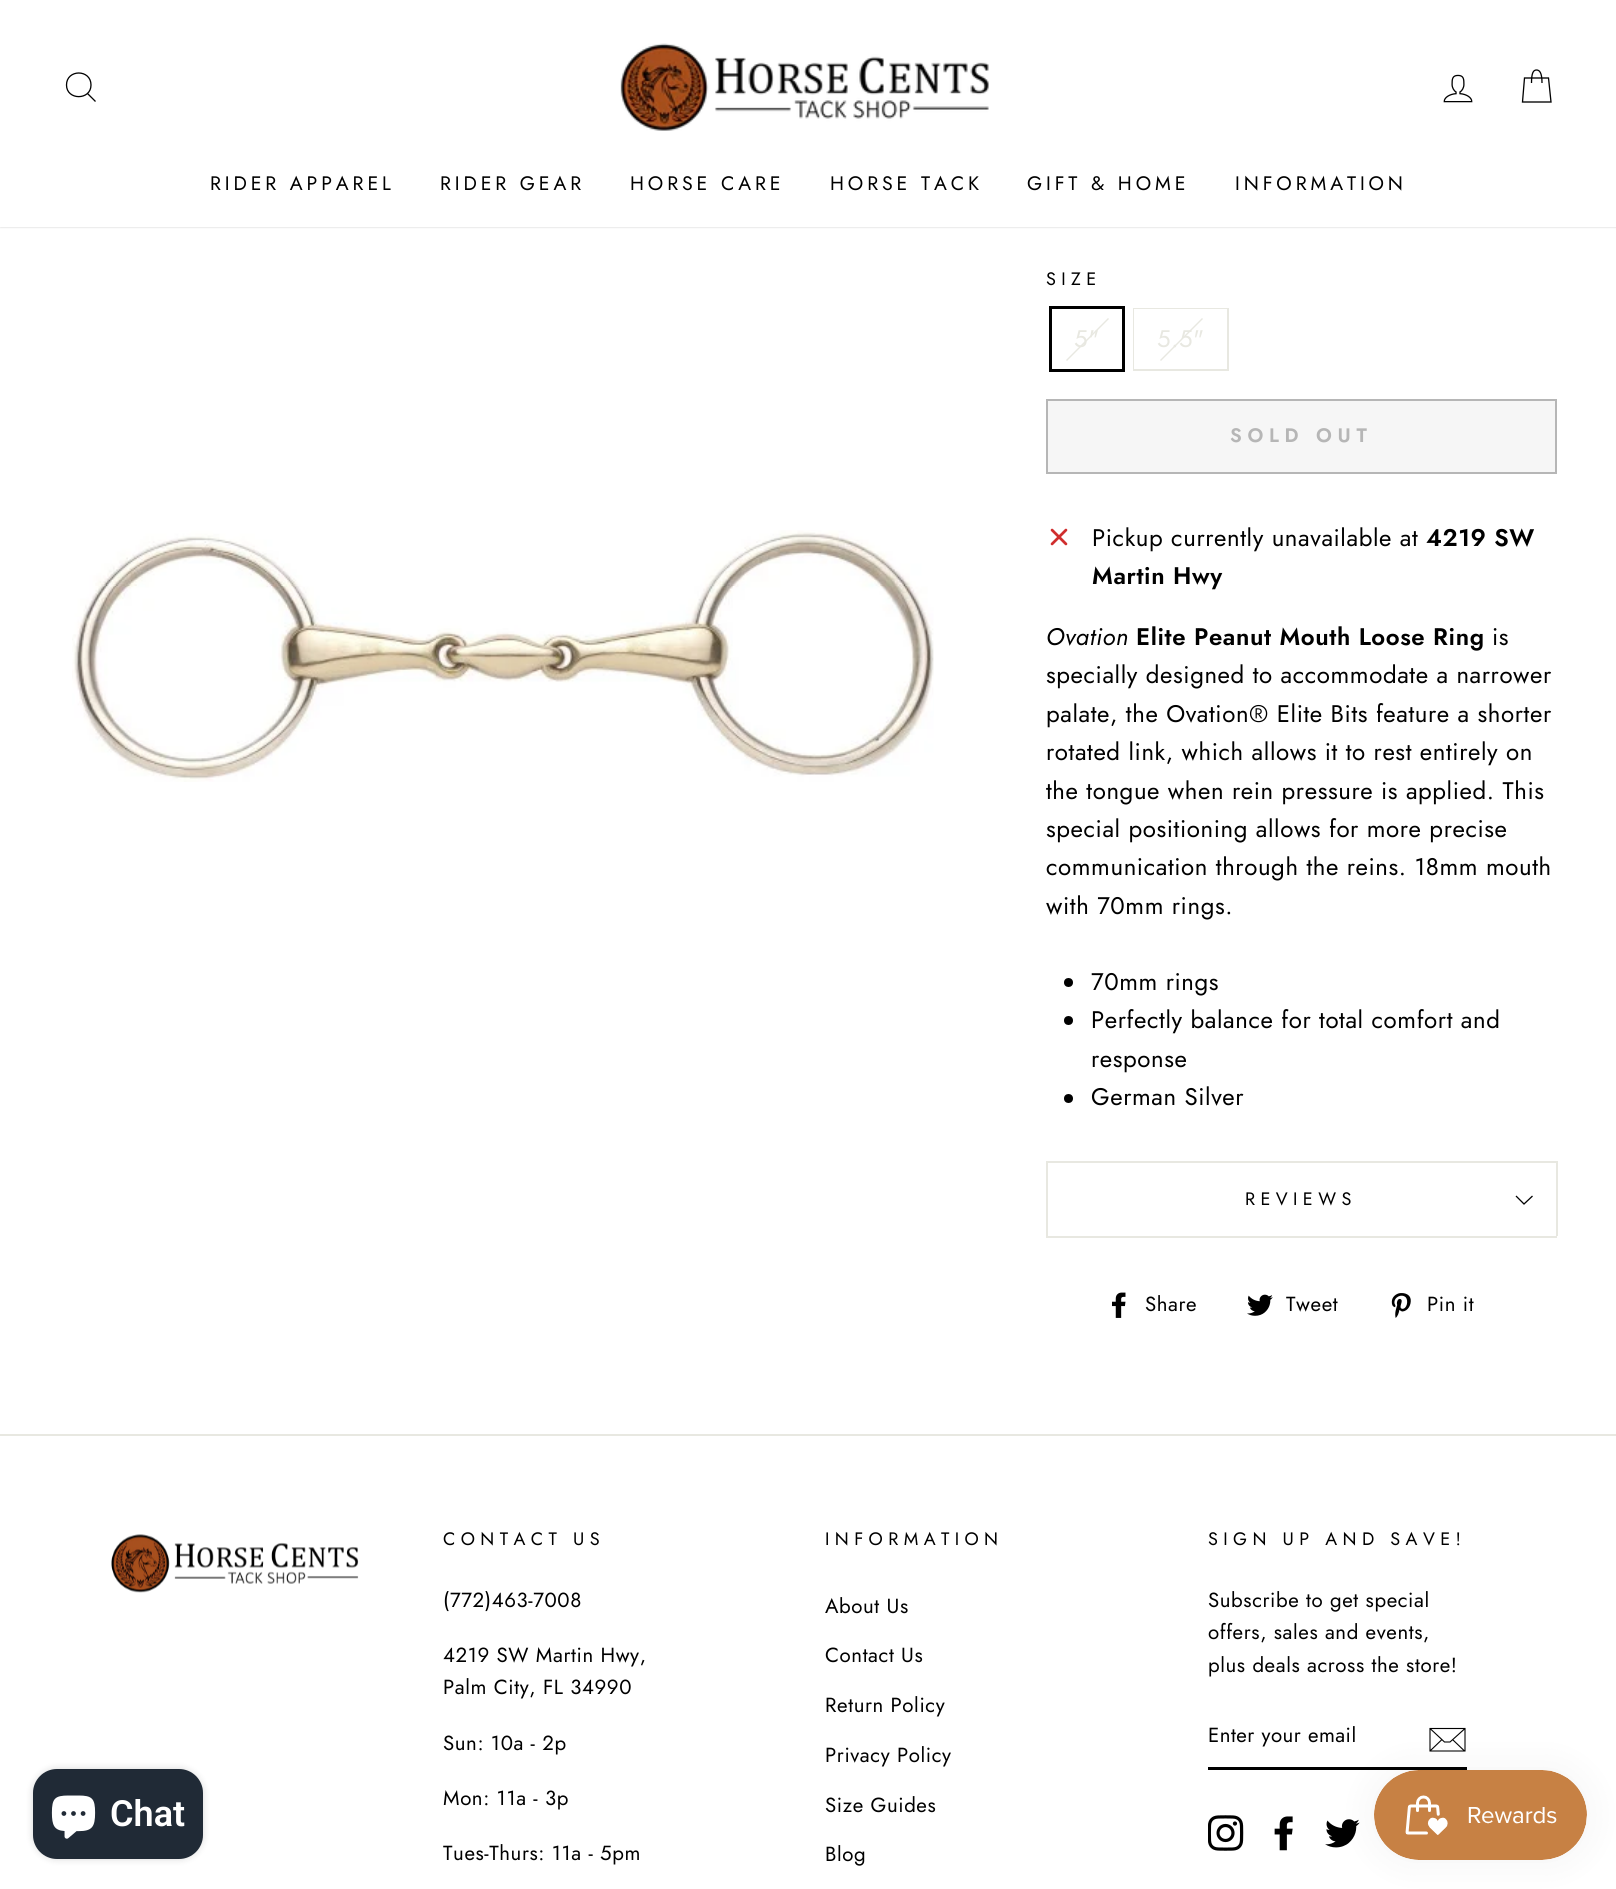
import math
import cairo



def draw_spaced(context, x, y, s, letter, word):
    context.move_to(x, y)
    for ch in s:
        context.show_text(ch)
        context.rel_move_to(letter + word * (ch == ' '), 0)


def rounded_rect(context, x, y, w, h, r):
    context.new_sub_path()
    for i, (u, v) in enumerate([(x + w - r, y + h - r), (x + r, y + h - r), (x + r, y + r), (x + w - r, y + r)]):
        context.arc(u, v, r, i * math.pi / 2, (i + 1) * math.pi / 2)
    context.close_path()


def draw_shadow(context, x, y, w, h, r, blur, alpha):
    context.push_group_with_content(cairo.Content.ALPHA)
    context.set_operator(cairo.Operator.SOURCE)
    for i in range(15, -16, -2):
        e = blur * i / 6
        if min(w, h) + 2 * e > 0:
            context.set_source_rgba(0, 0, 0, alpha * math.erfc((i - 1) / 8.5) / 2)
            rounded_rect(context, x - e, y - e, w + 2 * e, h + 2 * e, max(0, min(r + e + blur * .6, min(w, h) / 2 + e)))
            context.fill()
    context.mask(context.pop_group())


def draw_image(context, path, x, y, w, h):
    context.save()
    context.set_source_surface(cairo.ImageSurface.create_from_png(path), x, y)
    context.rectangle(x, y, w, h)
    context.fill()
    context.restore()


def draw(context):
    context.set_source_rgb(1, 1, 1)
    context.paint()
    context.set_source_rgb(0, 0, 0)
    draw_shadow(context, 0, 0, 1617, 227, 0, 1, 0.2)
    context.set_source_rgb(1, 1, 1)
    context.rectangle(0, 0, 1616, 227)
    context.fill()
    context.new_path()
    context.move_to(91, 85)
    context.curve_to(91, 100.5, 66.5, 100.5, 66.5, 85)
    context.curve_to(66.5, 69, 91, 69, 91, 85)
    context.close_path()
    context.move_to(95.5, 101.5)
    context.line_to(87.5, 93.5)
    context.set_source_rgb(0, 0, 0)
    context.set_line_width(1.3)
    context.stroke()
    draw_image(context, "images/1.png", 620, 43, 369, 88)
    draw_image(context, "images/2.png", 1443, 74, 30, 29)
    context.new_path()
    context.move_to(1531.5, 83)
    context.curve_to(1531.5, 72.5, 1533.5, 70, 1536.5, 70)
    context.curve_to(1539.5, 70, 1542, 72.5, 1542, 83)
    context.move_to(1524.5, 78)
    context.line_to(1548.5, 78)
    context.line_to(1551, 102)
    context.line_to(1522.5, 102)
    context.close_path()
    context.stroke()
    draw_image(context, "images/3.png", 72, 530, 862, 252)
    context.rectangle(1050.5, 307.5, 73, 63)
    context.set_line_width(3)
    context.stroke()
    context.set_source_rgb(232 / 255, 232 / 255, 225 / 255)
    context.new_path()
    context.move_to(1108, 318)
    context.line_to(1109, 319)
    context.line_to(1067, 361)
    context.line_to(1066, 360)
    context.close_path()
    context.fill()
    context.rectangle(1134, 309, 94, 61)
    context.set_line_width(2)
    context.stroke()
    context.set_source_rgb(1, 1, 1)
    context.rectangle(1134, 309, 93, 60)
    context.fill()
    context.set_source_rgb(232 / 255, 232 / 255, 225 / 255)
    context.new_path()
    context.move_to(1202, 318)
    context.line_to(1203, 319)
    context.line_to(1161, 361)
    context.line_to(1160, 360)
    context.close_path()
    context.fill()
    context.set_source_rgb(246 / 255, 246 / 255, 246 / 255)
    context.rectangle(1047, 400, 509, 73)
    context.fill_preserve()
    context.set_source_rgb(182 / 255, 182 / 255, 182 / 255)
    context.stroke()
    draw_image(context, "images/4.png", 1050, 528, 18, 18)
    context.set_source_rgb(0, 0, 0)
    context.arc(1068.5, 982.5, 4.5, 0, 2 * math.pi)
    context.fill()
    context.arc(1068.5, 1020.5, 4.5, 0, 2 * math.pi)
    context.fill()
    context.arc(1068.5, 1098.5, 4.5, 0, 2 * math.pi)
    context.fill()
    context.set_source_rgb(232 / 255, 232 / 255, 225 / 255)
    context.rectangle(1046, 1236, 511, 2)
    context.fill()
    context.rectangle(1046, 1161, 511, 2)
    context.fill()
    context.rectangle(1556, 1161, 2, 75)
    context.fill()
    context.rectangle(1046, 1161, 2, 75)
    context.fill()
    context.new_path()
    context.move_to(1516, 1196)
    context.line_to(1524, 1204)
    context.line_to(1532.5, 1196)
    context.set_source_rgb(0, 0, 0)
    context.set_line_width(1.3)
    context.stroke()
    draw_image(context, "images/5.png", 1112, 1292, 14, 26)
    draw_image(context, "images/6.png", 1247, 1294, 26, 22)
    draw_image(context, "images/7.png", 1391, 1293, 20, 25)
    context.set_source_rgb(232 / 255, 232 / 255, 225 / 255)
    context.rectangle(0, 1434, 1616, 2)
    context.fill()
    draw_image(context, "images/8.png", 111, 1534, 248, 59)
    context.set_source_rgb(0, 0, 0)
    context.rectangle(1208, 1767, 259, 3)
    context.fill()
    context.new_path()
    context.move_to(1465, 1751)
    context.line_to(1430, 1751)
    context.line_to(1430, 1728.5)
    context.line_to(1465, 1728.5)
    context.close_path()
    context.move_to(1430, 1728.5)
    context.line_to(1444.5, 1742)
    context.line_to(1450, 1742)
    context.line_to(1465, 1728.5)
    context.move_to(1442, 1739.5)
    context.line_to(1430.5, 1750.5)
    context.move_to(1464.5, 1751)
    context.line_to(1452.5, 1739.5)
    context.set_line_width(1.1)
    context.stroke()
    draw_image(context, "images/9.png", 1208, 1815, 36, 36)
    draw_image(context, "images/10.png", 1274, 1816, 19, 35)
    draw_image(context, "images/11.png", 1325, 1819, 35, 29)
    context.set_source_rgb(0, 0, 0)
    draw_shadow(context, 33, 1769, 170, 90, 24, 4, 0.15)
    context.set_source_rgb(32 / 255, 42 / 255, 54 / 255)
    rounded_rect(context, 33, 1769, 170, 90, 24)
    context.fill()
    draw_image(context, "images/12.png", 51, 1795, 45, 44)
    context.set_source_rgb(0, 0, 0)
    draw_shadow(context, 1374, 1770, 213, 90, 45, 19, 0.05)
    draw_image(context, "images/13.png", 1374, 1770, 213, 90)
    context.select_font_face("Jost")
    context.set_font_size(19.5)
    context.set_source_rgb(0, 0, 0)
    draw_spaced(context, 210, 190, "RIDER APPAREL", 3.9, 0)
    draw_spaced(context, 440, 190, "RIDER GEAR", 3.9, 0)
    draw_spaced(context, 630, 190, "HORSE CARE", 3.9, 0)
    draw_spaced(context, 830, 190, "HORSE TACK", 3.9, 0)
    draw_spaced(context, 1027, 190, "GIFT & HOME", 3.9, 0)
    draw_spaced(context, 1235, 190, "INFORMATION", 3.9, 0)
    context.set_font_size(18)
    draw_spaced(context, 1046, 285, "SIZE", 5.4, 0)
    context.set_font_size(24)
    context.set_source_rgb(232 / 255, 232 / 255, 225 / 255)
    draw_spaced(context, 1074, 347, "5\"", 0.6, 0)
    draw_spaced(context, 1157, 347, "5.5\"", 0.6, 0)
    context.select_font_face("Jost SemiBold")
    context.set_font_size(19.5)
    context.set_source_rgb(182 / 255, 182 / 255, 182 / 255)
    draw_spaced(context, 1230, 442, "SOLD OUT", 5.75, 0)
    context.select_font_face("Jost")
    context.set_font_size(24)
    context.set_source_rgb(0, 0, 0)
    draw_spaced(context, 1092, 546, "Pickup currently unavailable at", 0.6, 0)
    context.select_font_face("Jost SemiBold")
    draw_spaced(context, 1426, 546, "4219 SW", 0.6, 0)
    draw_spaced(context, 1092, 584, "Martin Hwy", 0.6, 0)
    context.select_font_face("Jost", cairo.FontSlant.ITALIC)
    draw_spaced(context, 1046, 645, "Ovation", 0.6, 0)
    context.select_font_face("Jost SemiBold")
    draw_spaced(context, 1136, 645, "Elite Peanut Mouth Loose Ring", 0.6, 0)
    context.select_font_face("Jost")
    draw_spaced(context, 1492, 645, "is", 0.6, 0)
    draw_spaced(context, 1046, 683, "specially designed to accommodate a narrower", 0.6, 0)
    draw_spaced(context, 1046, 722, "palate, the Ovation® Elite Bits feature a shorter", 0.6, 0)
    draw_spaced(context, 1046, 760, "rotated link, which allows it to rest entirely on", 0.6, 0)
    draw_spaced(context, 1046, 799, "the tongue when rein pressure is applied. This", 0.6, 0)
    draw_spaced(context, 1046, 837, "special positioning allows for more precise", 0.6, 0)
    draw_spaced(context, 1046, 875, "communication through the reins. 18mm mouth", 0.6, 0)
    draw_spaced(context, 1046, 914, "with 70mm rings.", 0.6, 0)
    draw_spaced(context, 1091, 990, "70mm rings", 0.6, 0)
    draw_spaced(context, 1091, 1028, "Perfectly balance for total comfort and", 0.6, 0)
    draw_spaced(context, 1091, 1067, "response", 0.6, 0)
    draw_spaced(context, 1091, 1105, "German Silver", 0.6, 0)
    context.set_font_size(18)
    draw_spaced(context, 1245, 1205, "REVIEWS", 5.4, 0)
    context.set_font_size(20.4)
    draw_spaced(context, 1145, 1311, "Share", 0.6, 0)
    draw_spaced(context, 1286, 1311, "Tweet", 0.6, 0)
    draw_spaced(context, 1427, 1311, "Pin it", 0.6, 0)
    context.set_font_size(18)
    draw_spaced(context, 443, 1545, "CONTACT US", 5.4, 0)
    context.set_font_size(20.4)
    draw_spaced(context, 443, 1607, "(772)463-7008", 0.6, 0)
    draw_spaced(context, 443, 1662, "4219 SW Martin Hwy,", 0.6, 0)
    draw_spaced(context, 443, 1694, "Palm City, FL 34990", 0.6, 0)
    draw_spaced(context, 443, 1750, "Sun: 10a - 2p", 0.6, 0)
    draw_spaced(context, 443, 1805, "Mon: 11a - 3p", 0.6, 0)
    draw_spaced(context, 443, 1860, "Tues-Thurs: 11a - 5pm", 0.6, 0)
    context.set_font_size(18)
    draw_spaced(context, 825, 1545, "INFORMATION", 5.4, 0)
    context.set_font_size(20.4)
    draw_spaced(context, 825, 1613, "About Us", 0.6, 0)
    draw_spaced(context, 825, 1662, "Contact Us", 0.6, 0)
    draw_spaced(context, 825, 1712, "Return Policy", 0.6, 0)
    draw_spaced(context, 825, 1762, "Privacy Policy", 0.6, 0)
    draw_spaced(context, 825, 1812, "Size Guides", 0.6, 0)
    draw_spaced(context, 825, 1861, "Blog", 0.6, 0)
    context.set_font_size(18)
    draw_spaced(context, 1208, 1545, "SIGN UP AND SAVE!", 5.4, 0)
    context.set_font_size(20.4)
    draw_spaced(context, 1208, 1607, "Subscribe to get special", 0.6, 0)
    draw_spaced(context, 1208, 1639, "offers, sales and events,", 0.6, 0)
    draw_spaced(context, 1208, 1672, "plus deals across the store!", 0.6, 0)
    draw_spaced(context, 1208, 1742, "Enter your email", 0.5, 0)
    context.select_font_face("Roboto SemiBold")
    context.set_font_size(36)
    context.set_source_rgb(1, 1, 1)
    context.move_to(110, 1826)
    context.show_text("Chat")


surface = cairo.ImageSurface(cairo.Format.RGB24, 1616, 1889)
context = cairo.Context(surface)
options = cairo.FontOptions()
options.set_hint_metrics(cairo.HintMetrics.OFF)
options.set_hint_style(cairo.HintStyle.NONE)
context.set_font_options(options)
context.set_miter_limit(4)
draw(context)
surface.write_to_png("out.png")
